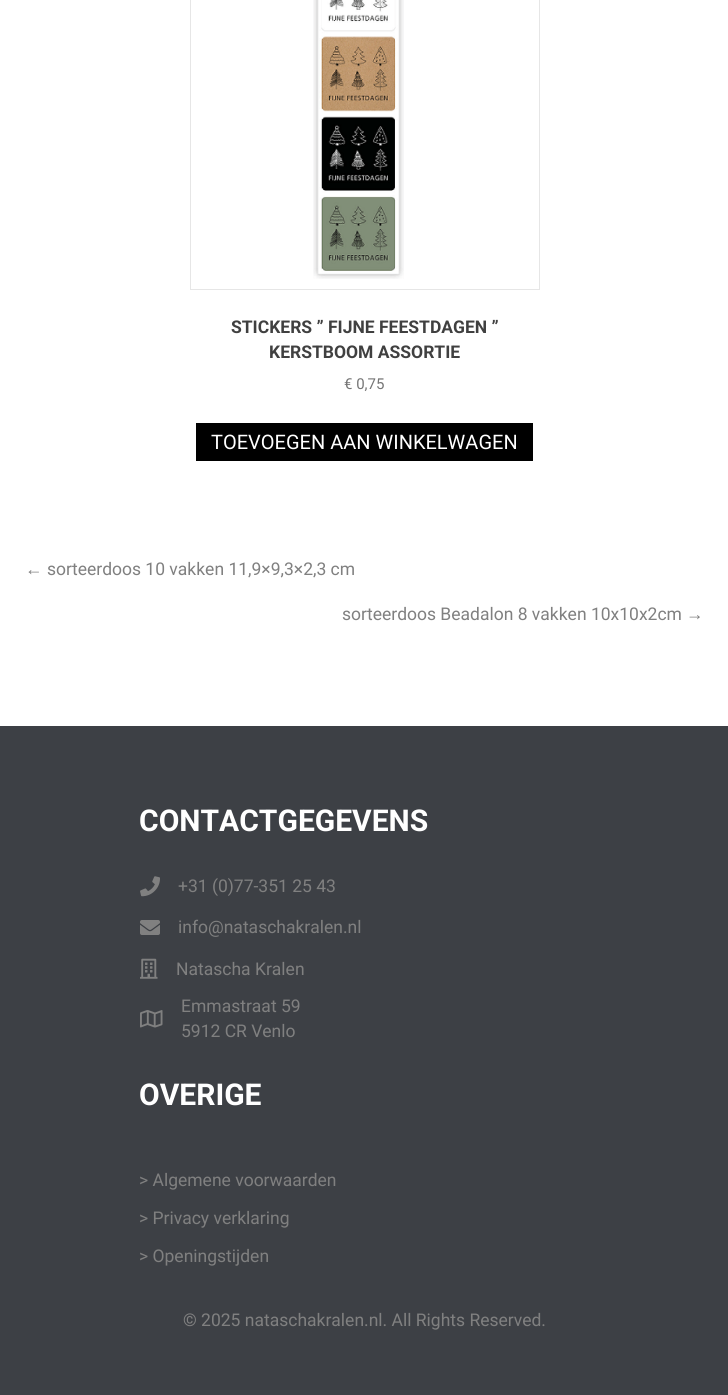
import math
import cairo



def draw_image(context, path, x, y, w, h):
    context.save()
    context.set_source_surface(cairo.ImageSurface.create_from_png(path), x, y)
    context.rectangle(x, y, w, h)
    context.fill()
    context.restore()


def draw(context):
    context.set_source_rgb(1, 1, 1)
    context.paint()
    context.rectangle(190.5, -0.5, 349, 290)
    context.set_source_rgb(230 / 255, 230 / 255, 230 / 255)
    context.set_line_width(1)
    context.stroke()
    draw_image(context, "images/1.png", 313, 0, 91, 279)
    context.set_source_rgb(0, 0, 0)
    context.rectangle(196, 423, 337, 38)
    context.fill()
    context.set_source_rgb(61 / 255, 64 / 255, 69 / 255)
    context.rectangle(0, 726, 728, 669)
    context.fill()
    draw_image(context, "images/2.png", 140, 876, 20, 21)
    draw_image(context, "images/3.png", 140, 920, 20, 15)
    draw_image(context, "images/4.png", 140, 958, 18, 21)
    draw_image(context, "images/5.png", 140, 1010, 23, 18)
    context.select_font_face("Roboto", cairo.FontSlant.NORMAL, cairo.FontWeight.BOLD)
    context.set_font_size(17.5)
    context.set_source_rgb(64 / 255, 64 / 255, 64 / 255)
    context.move_to(231, 333)
    context.show_text("STICKERS ” FIJNE FEESTDAGEN ”")
    context.move_to(269, 358)
    context.show_text("KERSTBOOM ASSORTIE")
    context.select_font_face("Roboto")
    context.set_font_size(15)
    context.set_source_rgb(117 / 255, 117 / 255, 117 / 255)
    context.move_to(344, 389)
    context.show_text("€ 0,75")
    context.set_font_size(20)
    context.set_source_rgb(1, 1, 1)
    context.move_to(211, 449)
    context.show_text("TOEVOEGEN AAN WINKELWAGEN")
    context.select_font_face("Liberation Sans")
    context.set_font_size(17.5)
    context.set_source_rgb(128 / 255, 128 / 255, 128 / 255)
    context.move_to(25, 575)
    context.show_text("←")
    context.select_font_face("Roboto")
    context.move_to(47, 575)
    context.show_text("sorteerdoos 10 vakken 11,9×9,3×2,3 cm")
    context.move_to(342, 620)
    context.show_text("sorteerdoos Beadalon 8 vakken 10x10x2cm")
    context.select_font_face("Liberation Sans")
    context.move_to(686, 620)
    context.show_text("→")
    context.select_font_face("Roboto", cairo.FontSlant.NORMAL, cairo.FontWeight.BOLD)
    context.set_font_size(30)
    context.set_source_rgb(1, 1, 1)
    context.move_to(139, 831)
    context.show_text("CONTACTGEGEVENS")
    context.select_font_face("Roboto")
    context.set_font_size(17.5)
    context.set_source_rgb(128 / 255, 128 / 255, 128 / 255)
    context.move_to(178, 892)
    context.show_text("+31 (0)77-351 25 43")
    context.move_to(178, 933)
    context.show_text("info@nataschakralen.nl")
    context.move_to(176, 975)
    context.show_text("Natascha Kralen")
    context.move_to(181, 1012)
    context.show_text("Emmastraat 59")
    context.move_to(181, 1037)
    context.show_text("5912 CR Venlo")
    context.select_font_face("Roboto", cairo.FontSlant.NORMAL, cairo.FontWeight.BOLD)
    context.set_font_size(30)
    context.set_source_rgb(1, 1, 1)
    context.move_to(139, 1105)
    context.show_text("OVERIGE")
    context.select_font_face("Roboto")
    context.set_font_size(17.5)
    context.set_source_rgb(128 / 255, 128 / 255, 128 / 255)
    context.move_to(139, 1186)
    context.show_text("> Algemene voorwaarden")
    context.move_to(139, 1224)
    context.show_text("> Privacy verklaring")
    context.move_to(139, 1262)
    context.show_text("> Openingstijden")
    context.move_to(183, 1326)
    context.show_text("© 2025 nataschakralen.nl. All Rights Reserved.")


surface = cairo.ImageSurface(cairo.Format.RGB24, 728, 1395)
context = cairo.Context(surface)
options = cairo.FontOptions()
options.set_hint_metrics(cairo.HintMetrics.OFF)
options.set_hint_style(cairo.HintStyle.NONE)
context.set_font_options(options)
context.set_miter_limit(4)
draw(context)
surface.write_to_png("out.png")
